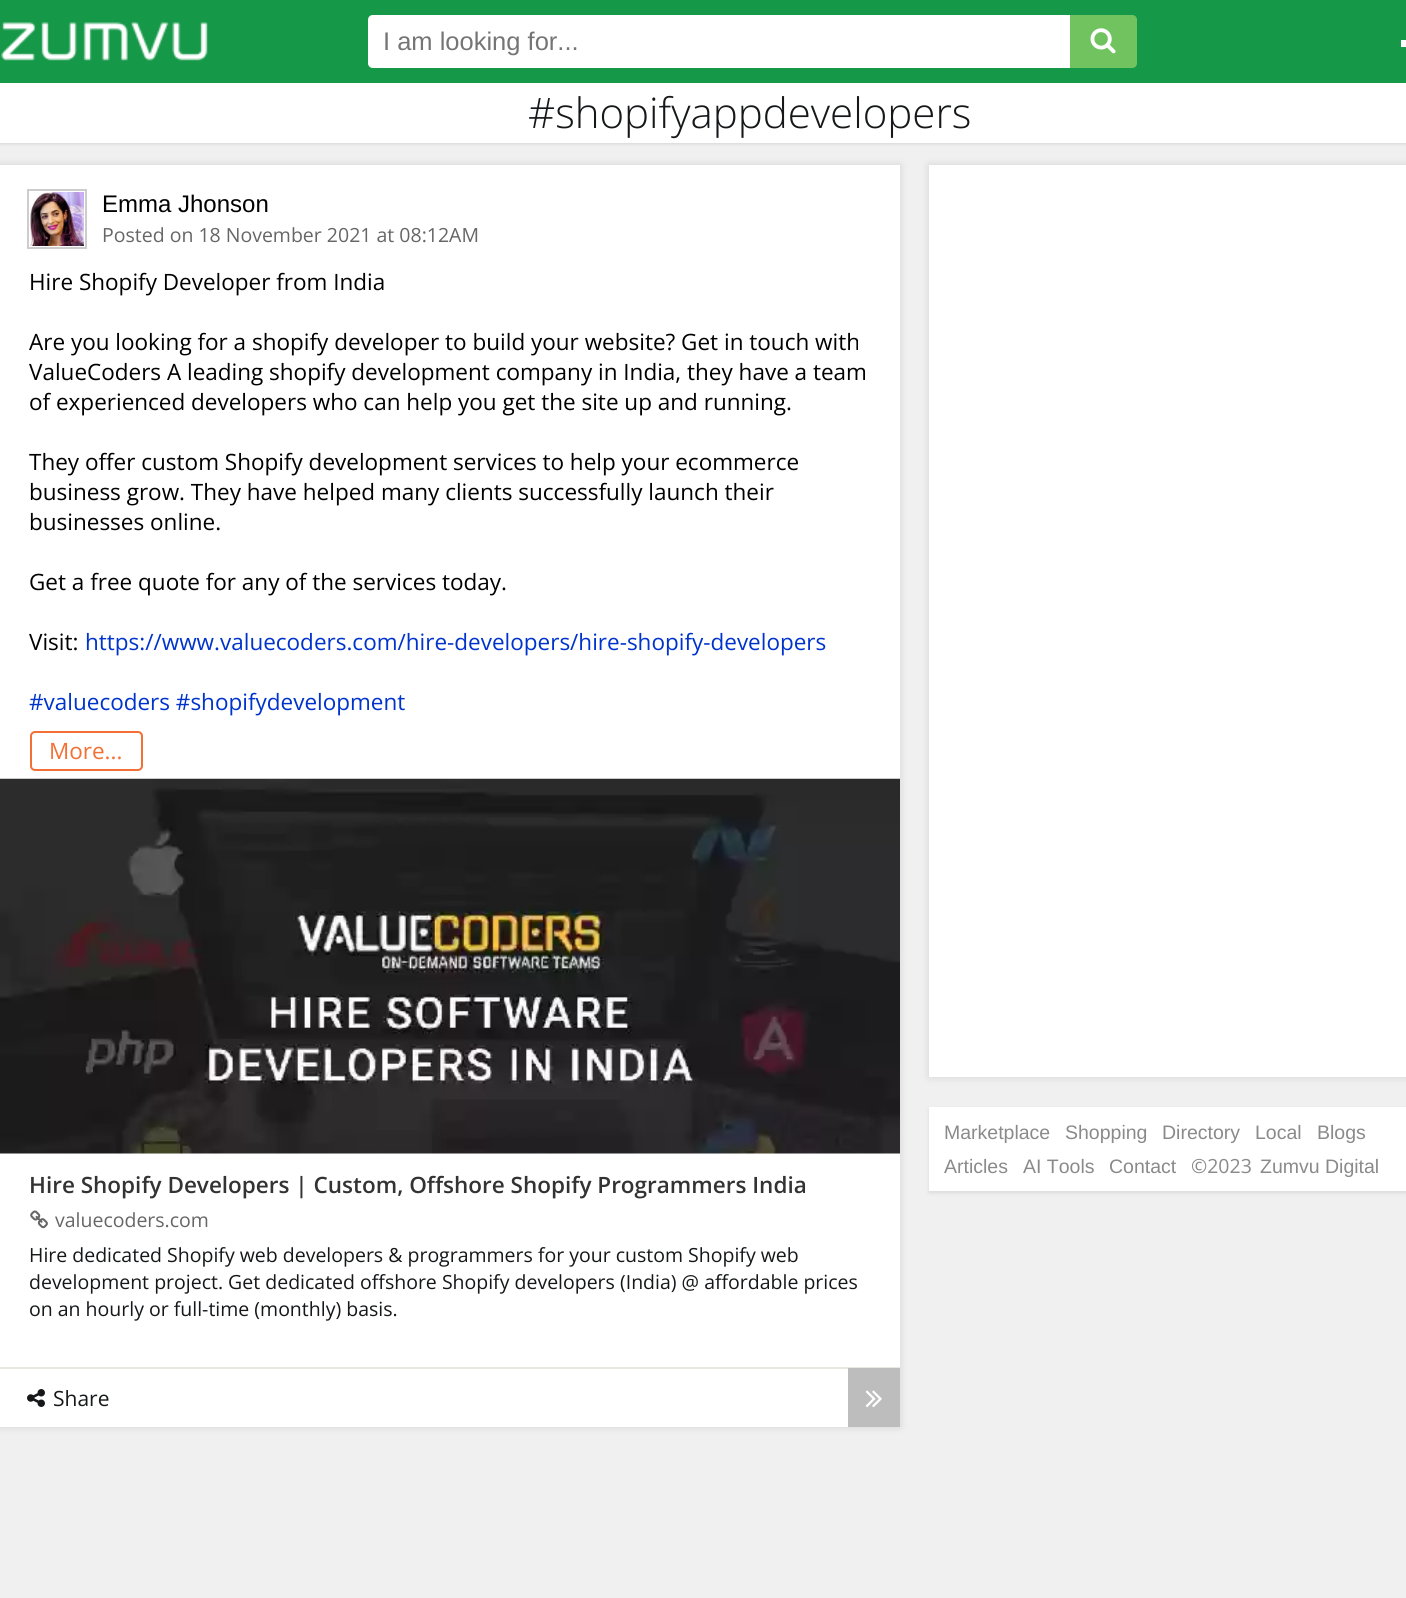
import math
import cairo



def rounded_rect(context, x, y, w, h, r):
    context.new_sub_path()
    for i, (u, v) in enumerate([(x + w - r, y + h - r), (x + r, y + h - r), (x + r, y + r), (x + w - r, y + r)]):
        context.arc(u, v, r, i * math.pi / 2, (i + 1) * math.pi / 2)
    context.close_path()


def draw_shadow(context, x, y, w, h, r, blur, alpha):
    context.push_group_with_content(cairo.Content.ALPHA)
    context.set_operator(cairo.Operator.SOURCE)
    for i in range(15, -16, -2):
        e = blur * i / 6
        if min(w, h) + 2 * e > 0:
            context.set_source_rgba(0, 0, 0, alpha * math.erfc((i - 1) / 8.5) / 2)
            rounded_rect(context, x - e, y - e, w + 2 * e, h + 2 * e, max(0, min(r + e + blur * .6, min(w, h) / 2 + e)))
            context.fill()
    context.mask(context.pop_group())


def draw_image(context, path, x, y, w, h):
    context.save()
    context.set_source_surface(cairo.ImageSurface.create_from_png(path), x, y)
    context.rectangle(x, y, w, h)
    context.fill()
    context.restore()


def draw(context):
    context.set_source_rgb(240 / 255, 240 / 255, 240 / 255)
    context.paint()
    context.set_source_rgb(0, 0, 0)
    draw_shadow(context, 0, 84, 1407, 60, 0, 1.5, 0.11)
    context.set_source_rgb(21 / 255, 152 / 255, 72 / 255)
    context.rectangle(0, 0, 1406, 83)
    context.fill()
    draw_image(context, "images/1.png", 1, 22, 207, 39)
    context.set_source_rgb(1, 1, 1)
    context.new_path()
    context.move_to(373, 15)
    context.line_to(1070, 15)
    context.line_to(1070, 68)
    context.line_to(373, 68)
    context.curve_to(370, 68, 368, 66, 368, 63)
    context.line_to(368, 20)
    context.curve_to(368, 17, 370, 15, 373, 15)
    context.close_path()
    context.fill()
    context.set_source_rgb(112 / 255, 195 / 255, 95 / 255)
    context.new_path()
    context.move_to(1070, 15)
    context.line_to(1132, 15)
    context.curve_to(1135, 15, 1137, 17, 1137, 20)
    context.line_to(1137, 63)
    context.curve_to(1137, 66, 1135, 68, 1132, 68)
    context.line_to(1070, 68)
    context.close_path()
    context.fill()
    draw_image(context, "images/2.png", 1090, 28, 26, 26)
    context.set_source_rgb(1, 1, 1)
    context.rectangle(1401, 40, 5, 7)
    context.fill()
    context.rectangle(0, 83, 1406, 60)
    context.fill()
    context.set_source_rgb(0, 0, 0)
    draw_shadow(context, 0, 165, 900, 1262, 0, 4.5, 0.12)
    context.set_source_rgb(1, 1, 1)
    context.rectangle(0, 165, 900, 1262)
    context.fill()
    context.rectangle(28, 190, 58, 58)
    context.set_source_rgb(204 / 255, 205 / 255, 204 / 255)
    context.stroke()
    draw_image(context, "images/3.png", 30, 192, 54, 54)
    rounded_rect(context, 31, 732, 111, 38, 4)
    context.set_source_rgb(244 / 255, 111 / 255, 52 / 255)
    context.stroke()
    draw_image(context, "images/4.png", 0, 778, 900, 376)
    draw_image(context, "images/5.png", 30, 1210, 18, 19)
    context.set_source_rgb(233 / 255, 233 / 255, 228 / 255)
    context.rectangle(0, 1367, 900, 2)
    context.fill()
    draw_image(context, "images/6.png", 27, 1389, 18, 18)
    context.set_source_rgb(189 / 255, 189 / 255, 189 / 255)
    context.rectangle(848, 1368, 52, 59)
    context.fill()
    draw_image(context, "images/7.png", 865, 1390, 17, 18)
    context.set_source_rgb(0, 0, 0)
    draw_shadow(context, 929, 165, 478, 912, 0, 4.5, 0.12)
    context.set_source_rgb(1, 1, 1)
    context.rectangle(929, 165, 477, 912)
    context.fill()
    context.set_source_rgb(199 / 255, 197 / 255, 197 / 255)
    draw_shadow(context, 929, 1109, 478, 84, 0, 2, 0.5)
    context.set_source_rgb(1, 1, 1)
    context.rectangle(929, 1107, 477, 84)
    context.fill()
    context.select_font_face("Liberation Sans")
    context.set_font_size(25.5)
    context.set_source_rgb(117 / 255, 117 / 255, 117 / 255)
    context.move_to(383, 50)
    context.show_text("I am looking for...")
    context.select_font_face("Open Sans Light")
    context.set_font_size(42)
    context.set_source_rgb(21 / 255, 23 / 255, 25 / 255)
    context.move_to(528, 128)
    context.show_text("#shopifyappdevelopers")
    context.select_font_face("Liberation Sans")
    context.set_font_size(24)
    context.set_source_rgb(0, 0, 0)
    context.move_to(102, 212)
    context.show_text("Emma Jhonson")
    context.select_font_face("Open Sans")
    context.set_font_size(19.5)
    context.set_source_rgb(102 / 255, 102 / 255, 102 / 255)
    context.move_to(102, 242)
    context.show_text("Posted on 18 November 2021 at 08:12AM")
    context.set_font_size(22.5)
    context.set_source_rgb(0, 0, 0)
    context.move_to(29, 290)
    context.show_text("Hire Shopify Developer from India")
    context.move_to(29, 350)
    context.show_text("Are you looking for a shopify developer to build your website? Get in touch with")
    context.move_to(29, 380)
    context.show_text("ValueCoders A leading shopify development company in India, they have a team")
    context.move_to(29, 410)
    context.show_text("of experienced developers who can help you get the site up and running.")
    context.move_to(29, 470)
    context.show_text("They offer custom Shopify development services to help your ecommerce")
    context.move_to(29, 500)
    context.show_text("business grow. They have helped many clients successfully launch their")
    context.move_to(29, 530)
    context.show_text("businesses online.")
    context.move_to(29, 590)
    context.show_text("Get a free quote for any of the services today.")
    context.move_to(29, 650)
    context.show_text("Visit:")
    context.set_source_rgb(0, 51 / 255, 204 / 255)
    context.move_to(85, 650)
    context.show_text("https://www.valuecoders.com/hire-developers/hire-shopify-developers")
    context.move_to(29, 710)
    context.show_text("#valuecoders #shopifydevelopment")
    context.set_source_rgb(244 / 255, 111 / 255, 52 / 255)
    context.move_to(49, 759)
    context.show_text("More...")
    context.select_font_face("Open Sans SemiBold")
    context.set_source_rgb(51 / 255, 51 / 255, 51 / 255)
    context.move_to(29, 1193)
    context.show_text("Hire Shopify Developers | Custom, Offshore Shopify Programmers India")
    context.select_font_face("Open Sans")
    context.set_font_size(19.5)
    context.set_source_rgb(102 / 255, 102 / 255, 102 / 255)
    context.move_to(55, 1227)
    context.show_text("valuecoders.com")
    context.set_source_rgb(21 / 255, 23 / 255, 25 / 255)
    context.move_to(29, 1262)
    context.show_text("Hire dedicated Shopify web developers & programmers for your custom Shopify web")
    context.move_to(29, 1289)
    context.show_text("development project. Get dedicated offshore Shopify developers (India) @ affordable prices")
    context.move_to(29, 1316)
    context.show_text("on an hourly or full-time (monthly) basis.")
    context.set_font_size(21)
    context.move_to(53, 1406)
    context.show_text("Share")
    context.select_font_face("Liberation Sans")
    context.set_font_size(19.5)
    context.set_source_rgb(138 / 255, 138 / 255, 138 / 255)
    context.move_to(944, 1139)
    context.show_text("Marketplace")
    context.move_to(1065, 1139)
    context.show_text("Shopping")
    context.move_to(1162, 1139)
    context.show_text("Directory")
    context.move_to(1255, 1139)
    context.show_text("Local")
    context.move_to(1317, 1139)
    context.show_text("Blogs")
    context.move_to(944, 1173)
    context.show_text("Articles")
    context.move_to(1023, 1173)
    context.show_text("AI Tools")
    context.move_to(1109, 1173)
    context.show_text("Contact")
    context.select_font_face("Open Sans")
    context.move_to(1191, 1173)
    context.show_text("©2023")
    context.select_font_face("Liberation Sans")
    context.move_to(1260, 1173)
    context.show_text("Zumvu Digital")


surface = cairo.ImageSurface(cairo.Format.RGB24, 1406, 1598)
context = cairo.Context(surface)
options = cairo.FontOptions()
options.set_hint_metrics(cairo.HintMetrics.OFF)
options.set_hint_style(cairo.HintStyle.NONE)
context.set_font_options(options)
context.set_miter_limit(4)
draw(context)
surface.write_to_png("out.png")
